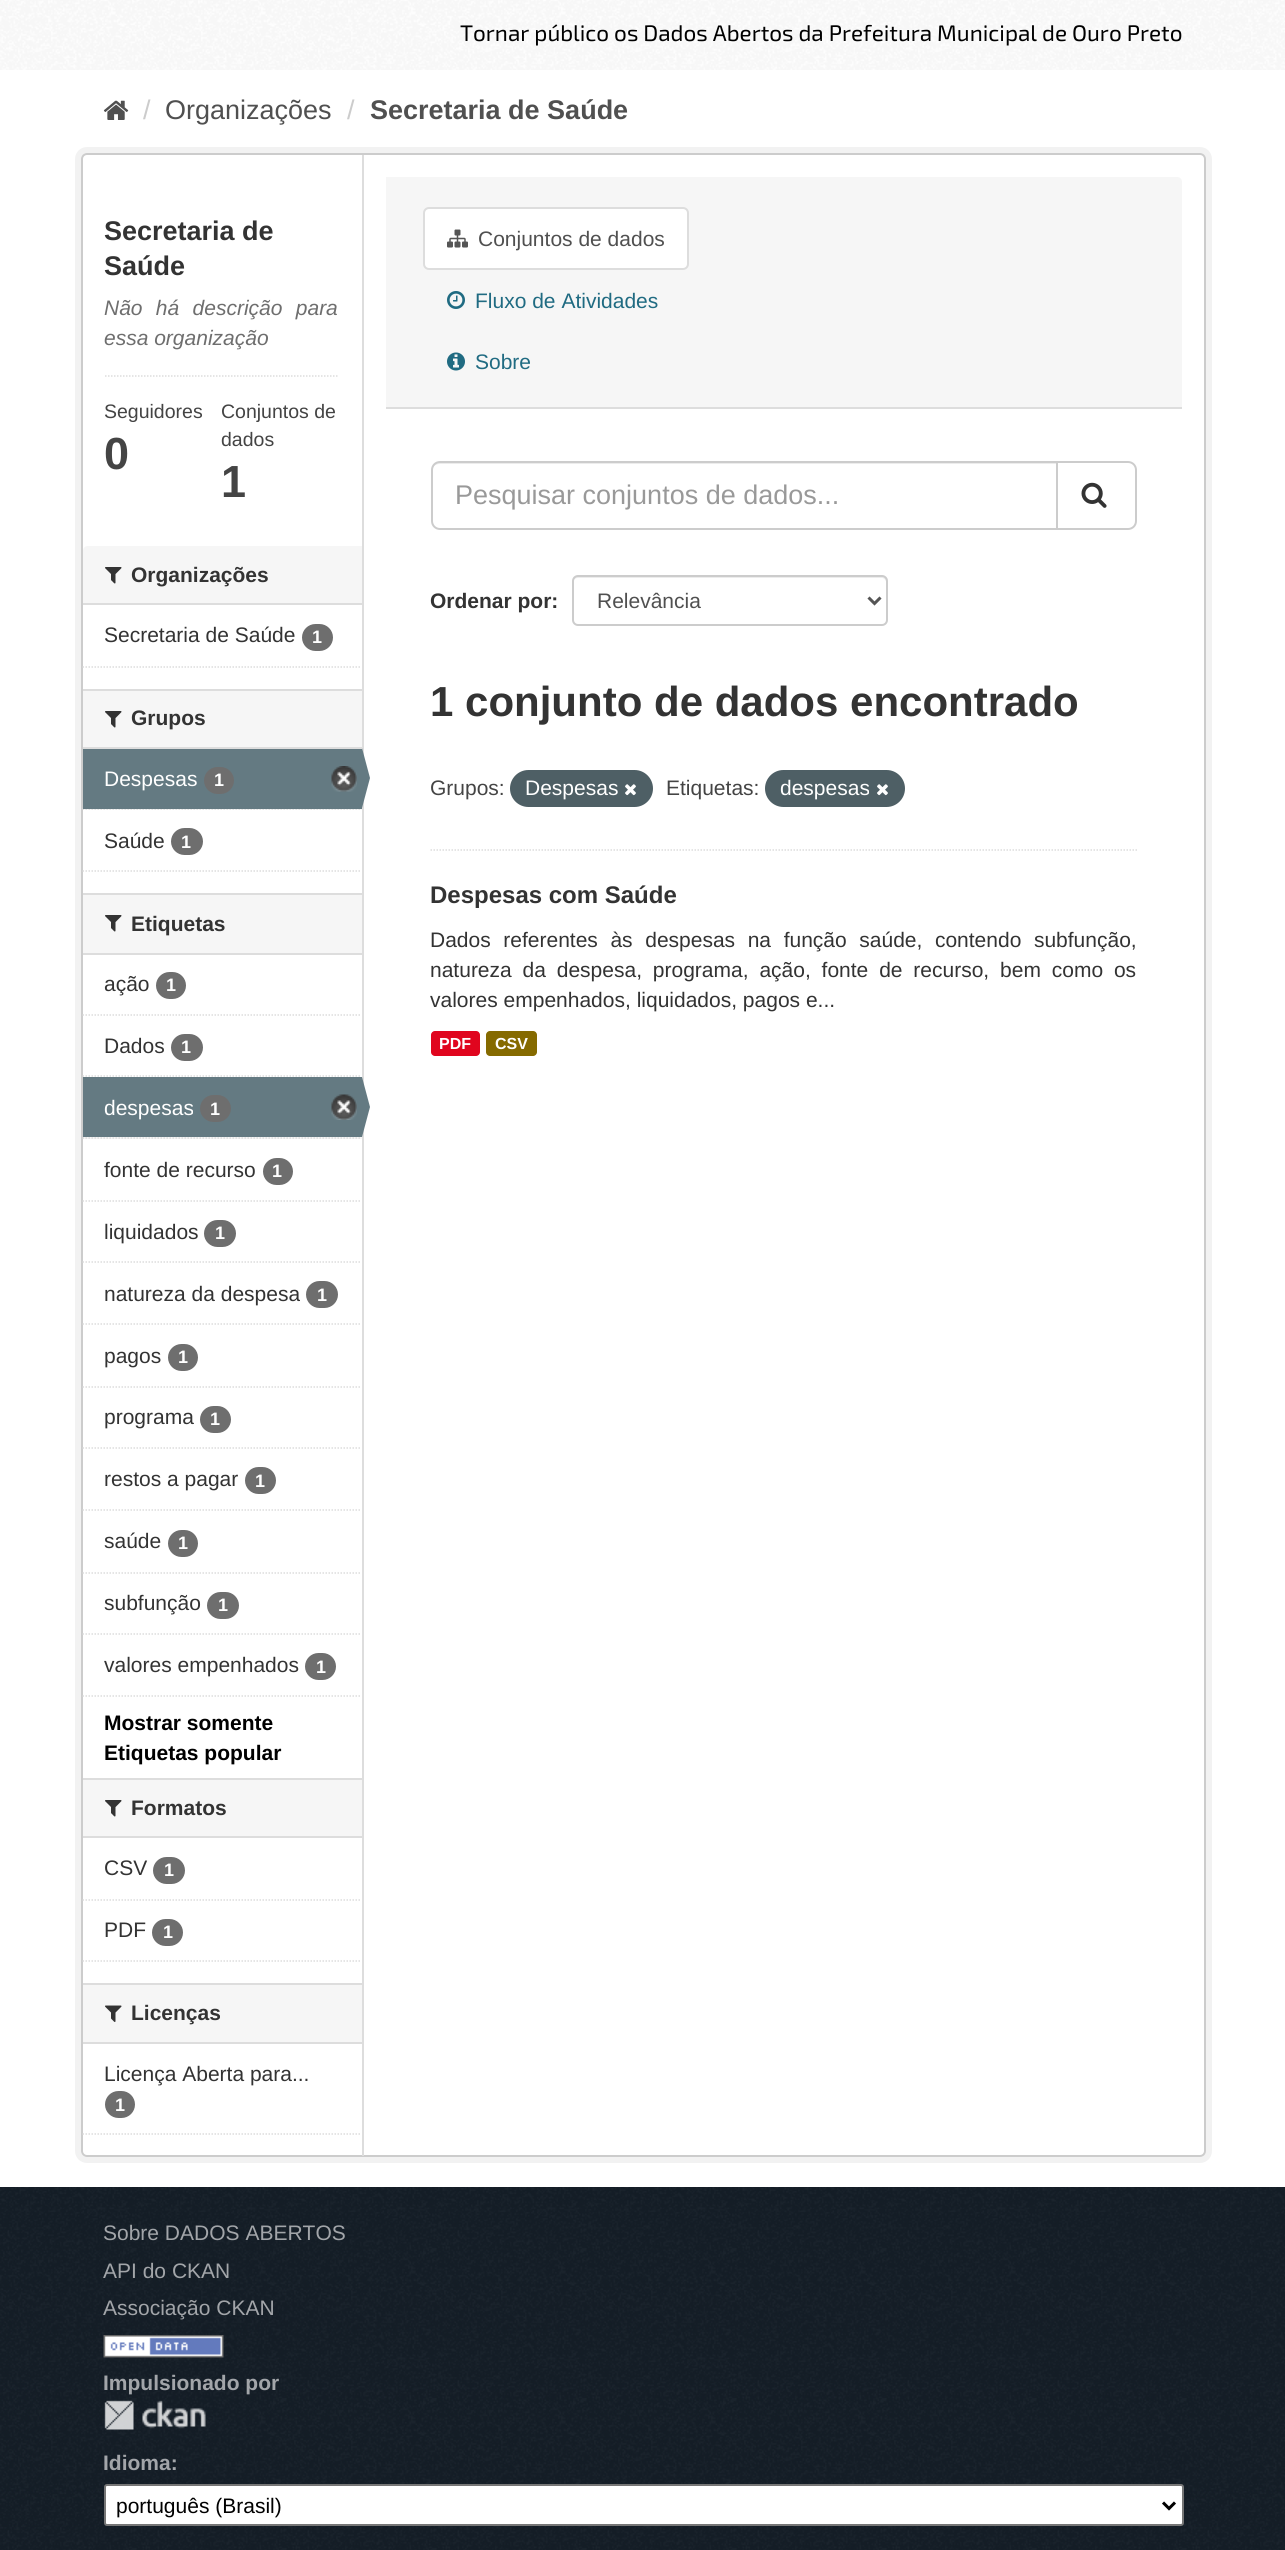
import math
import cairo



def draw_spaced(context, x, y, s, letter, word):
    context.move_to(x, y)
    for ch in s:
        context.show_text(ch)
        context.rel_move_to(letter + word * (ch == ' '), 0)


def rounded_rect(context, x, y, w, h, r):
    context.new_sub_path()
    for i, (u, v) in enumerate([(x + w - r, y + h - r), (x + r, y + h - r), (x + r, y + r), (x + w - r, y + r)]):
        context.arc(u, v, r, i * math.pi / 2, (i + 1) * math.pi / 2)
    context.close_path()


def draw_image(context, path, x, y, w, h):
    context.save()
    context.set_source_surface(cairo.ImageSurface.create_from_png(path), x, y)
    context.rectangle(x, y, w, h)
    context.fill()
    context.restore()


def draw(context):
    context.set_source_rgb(21 / 255, 30 / 255, 39 / 255)
    context.paint()
    context.set_source_rgb(1, 1, 1)
    context.rectangle(0, 0, 1285, 2187)
    context.fill()
    draw_image(context, "images/1.png", 0, 0, 1285, 70)
    draw_image(context, "images/2.png", 103, 100, 26, 20)
    rounded_rect(context, 78, 150, 1131, 2010, 9)
    context.set_source_rgb(242 / 255, 242 / 255, 242 / 255)
    context.set_line_width(6)
    context.stroke()
    context.set_source_rgb(1, 1, 1)
    rounded_rect(context, 82, 154, 1123, 2002, 5)
    context.fill_preserve()
    context.set_source_rgb(204 / 255, 204 / 255, 204 / 255)
    context.set_line_width(2)
    context.stroke()
    context.new_path()
    context.move_to(105, 376)
    context.line_to(339, 376)
    context.set_source_rgb(221 / 255, 221 / 255, 221 / 255)
    context.set_line_width(1.5)
    context.set_dash([1.5, 1.5])
    context.stroke()
    context.set_source_rgb(246 / 255, 246 / 255, 246 / 255)
    context.new_path()
    context.move_to(88, 546)
    context.line_to(362, 546)
    context.line_to(362, 605)
    context.line_to(83, 605)
    context.line_to(83, 551)
    context.curve_to(83, 548, 85, 546, 88, 546)
    context.close_path()
    context.fill()
    context.set_source_rgb(221 / 255, 221 / 255, 221 / 255)
    context.rectangle(83, 603, 279, 2)
    context.fill()
    draw_image(context, "images/3.png", 105, 567, 17, 17)
    context.set_source_rgb(110 / 255, 110 / 255, 110 / 255)
    rounded_rect(context, 302, 624, 31, 27, 13.5)
    context.fill()
    context.new_path()
    context.move_to(82.5, 667)
    context.line_to(361.5, 667)
    context.set_source_rgb(221 / 255, 221 / 255, 221 / 255)
    context.stroke()
    context.set_source_rgb(246 / 255, 246 / 255, 246 / 255)
    context.rectangle(83, 691, 279, 56)
    context.fill()
    context.set_source_rgb(221 / 255, 221 / 255, 221 / 255)
    context.rectangle(83, 689, 279, 2)
    context.fill()
    context.rectangle(83, 747, 279, 2)
    context.fill()
    draw_image(context, "images/3.png", 105, 711, 17, 17)
    context.set_source_rgb(246 / 255, 246 / 255, 246 / 255)
    context.rectangle(83, 809, 279, 1)
    context.fill()
    context.new_path()
    context.move_to(82.5, 809)
    context.line_to(361.5, 809)
    context.set_source_rgb(221 / 255, 221 / 255, 221 / 255)
    context.stroke()
    context.set_source_rgb(100 / 255, 122 / 255, 130 / 255)
    context.rectangle(83, 749, 279, 60)
    context.fill()
    context.set_source_rgb(110 / 255, 110 / 255, 110 / 255)
    rounded_rect(context, 204, 767, 30, 27, 13.5)
    context.fill()
    draw_image(context, "images/4.png", 331, 766, 26, 26)
    context.set_source_rgb(221 / 255, 221 / 255, 221 / 255)
    context.rectangle(362, 155, 2, 2001)
    context.fill()
    context.set_source_rgb(100 / 255, 122 / 255, 130 / 255)
    context.new_path()
    context.move_to(362, 808)
    context.line_to(362, 748)
    context.line_to(370, 778)
    context.close_path()
    context.fill()
    context.set_source_rgb(110 / 255, 110 / 255, 110 / 255)
    rounded_rect(context, 171, 828, 32, 27, 13.5)
    context.fill()
    context.new_path()
    context.move_to(82.5, 871)
    context.line_to(361.5, 871)
    context.set_source_rgb(221 / 255, 221 / 255, 221 / 255)
    context.stroke()
    context.set_source_rgb(246 / 255, 246 / 255, 246 / 255)
    context.rectangle(83, 895, 279, 58)
    context.fill()
    context.set_source_rgb(221 / 255, 221 / 255, 221 / 255)
    context.rectangle(83, 893, 279, 2)
    context.fill()
    context.rectangle(83, 953, 279, 2)
    context.fill()
    draw_image(context, "images/3.png", 105, 915, 17, 17)
    context.new_path()
    context.move_to(82.5, 1015)
    context.line_to(361.5, 1015)
    context.stroke()
    context.set_source_rgb(110 / 255, 110 / 255, 110 / 255)
    rounded_rect(context, 156, 972, 30, 27, 13.5)
    context.fill()
    context.new_path()
    context.move_to(82.5, 1076)
    context.line_to(361.5, 1076)
    context.set_source_rgb(221 / 255, 221 / 255, 221 / 255)
    context.stroke()
    context.set_source_rgb(110 / 255, 110 / 255, 110 / 255)
    rounded_rect(context, 171, 1034, 32, 27, 13.5)
    context.fill()
    context.set_source_rgb(246 / 255, 246 / 255, 246 / 255)
    context.rectangle(83, 1137, 279, 2)
    context.fill()
    context.new_path()
    context.move_to(82.5, 1138)
    context.line_to(361.5, 1138)
    context.set_source_rgb(221 / 255, 221 / 255, 221 / 255)
    context.stroke()
    context.set_source_rgb(100 / 255, 122 / 255, 130 / 255)
    context.rectangle(83, 1077, 279, 60)
    context.fill()
    context.set_source_rgb(110 / 255, 110 / 255, 110 / 255)
    rounded_rect(context, 200, 1095, 31, 27, 13.5)
    context.fill()
    draw_image(context, "images/5.png", 331, 1094, 26, 26)
    context.set_source_rgb(100 / 255, 122 / 255, 130 / 255)
    context.new_path()
    context.move_to(362, 1137)
    context.line_to(362, 1077)
    context.line_to(370, 1107)
    context.close_path()
    context.fill()
    context.new_path()
    context.move_to(82.5, 1201)
    context.line_to(361.5, 1201)
    context.set_source_rgb(221 / 255, 221 / 255, 221 / 255)
    context.stroke()
    context.set_source_rgb(110 / 255, 110 / 255, 110 / 255)
    rounded_rect(context, 263, 1158, 30, 27, 13.5)
    context.fill()
    context.new_path()
    context.move_to(82.5, 1262)
    context.line_to(361.5, 1262)
    context.set_source_rgb(221 / 255, 221 / 255, 221 / 255)
    context.stroke()
    context.set_source_rgb(110 / 255, 110 / 255, 110 / 255)
    rounded_rect(context, 204, 1220, 32, 27, 13.5)
    context.fill()
    context.new_path()
    context.move_to(82.5, 1324)
    context.line_to(361.5, 1324)
    context.set_source_rgb(221 / 255, 221 / 255, 221 / 255)
    context.stroke()
    context.set_source_rgb(110 / 255, 110 / 255, 110 / 255)
    rounded_rect(context, 306, 1281, 32, 27, 13.5)
    context.fill()
    context.new_path()
    context.move_to(82.5, 1387)
    context.line_to(361.5, 1387)
    context.set_source_rgb(221 / 255, 221 / 255, 221 / 255)
    context.stroke()
    context.set_source_rgb(110 / 255, 110 / 255, 110 / 255)
    rounded_rect(context, 168, 1344, 30, 27, 13.5)
    context.fill()
    context.new_path()
    context.move_to(82.5, 1448)
    context.line_to(361.5, 1448)
    context.set_source_rgb(221 / 255, 221 / 255, 221 / 255)
    context.stroke()
    context.set_source_rgb(110 / 255, 110 / 255, 110 / 255)
    rounded_rect(context, 200, 1406, 31, 27, 13.5)
    context.fill()
    context.new_path()
    context.move_to(82.5, 1510)
    context.line_to(361.5, 1510)
    context.set_source_rgb(221 / 255, 221 / 255, 221 / 255)
    context.stroke()
    context.set_source_rgb(110 / 255, 110 / 255, 110 / 255)
    rounded_rect(context, 245, 1467, 31, 27, 13.5)
    context.fill()
    context.new_path()
    context.move_to(82.5, 1573)
    context.line_to(361.5, 1573)
    context.set_source_rgb(221 / 255, 221 / 255, 221 / 255)
    context.stroke()
    context.set_source_rgb(110 / 255, 110 / 255, 110 / 255)
    rounded_rect(context, 168, 1530, 30, 27, 13.5)
    context.fill()
    context.new_path()
    context.move_to(82.5, 1634)
    context.line_to(361.5, 1634)
    context.set_source_rgb(221 / 255, 221 / 255, 221 / 255)
    context.stroke()
    context.set_source_rgb(110 / 255, 110 / 255, 110 / 255)
    rounded_rect(context, 207, 1592, 32, 27, 13.5)
    context.fill()
    rounded_rect(context, 305, 1653, 31, 27, 13.5)
    context.fill()
    context.new_path()
    context.move_to(82.5, 1696)
    context.line_to(361.5, 1696)
    context.set_source_rgb(221 / 255, 221 / 255, 221 / 255)
    context.stroke()
    context.set_source_rgb(246 / 255, 246 / 255, 246 / 255)
    context.rectangle(83, 1780, 279, 56)
    context.fill()
    context.set_source_rgb(221 / 255, 221 / 255, 221 / 255)
    context.rectangle(83, 1778, 279, 2)
    context.fill()
    context.rectangle(83, 1836, 279, 2)
    context.fill()
    draw_image(context, "images/3.png", 105, 1800, 17, 17)
    context.new_path()
    context.move_to(82.5, 1900)
    context.line_to(361.5, 1900)
    context.stroke()
    context.set_source_rgb(110 / 255, 110 / 255, 110 / 255)
    rounded_rect(context, 153, 1857, 32, 27, 13.5)
    context.fill()
    rounded_rect(context, 152, 1919, 31, 27, 13.5)
    context.fill()
    context.new_path()
    context.move_to(82.5, 1961)
    context.line_to(361.5, 1961)
    context.set_source_rgb(221 / 255, 221 / 255, 221 / 255)
    context.stroke()
    context.set_source_rgb(246 / 255, 246 / 255, 246 / 255)
    context.rectangle(83, 1985, 279, 57)
    context.fill()
    context.set_source_rgb(221 / 255, 221 / 255, 221 / 255)
    context.rectangle(83, 1983, 279, 2)
    context.fill()
    context.rectangle(83, 2042, 279, 2)
    context.fill()
    draw_image(context, "images/6.png", 105, 2005, 17, 17)
    context.set_source_rgb(110 / 255, 110 / 255, 110 / 255)
    rounded_rect(context, 105, 2091, 30, 27, 13.5)
    context.fill()
    context.new_path()
    context.move_to(82.5, 2134)
    context.line_to(361.5, 2134)
    context.set_source_rgb(221 / 255, 221 / 255, 221 / 255)
    context.stroke()
    context.set_source_rgb(246 / 255, 246 / 255, 246 / 255)
    context.new_path()
    context.move_to(386, 177)
    context.line_to(1177, 177)
    context.curve_to(1180, 177, 1182, 179, 1182, 182)
    context.line_to(1182, 408)
    context.line_to(386, 408)
    context.close_path()
    context.fill()
    context.set_source_rgb(221 / 255, 221 / 255, 221 / 255)
    context.rectangle(386, 407, 796, 2)
    context.fill()
    context.set_source_rgb(1, 1, 1)
    rounded_rect(context, 424, 208, 264, 61, 5)
    context.fill_preserve()
    context.set_source_rgb(221 / 255, 221 / 255, 221 / 255)
    context.set_line_width(2)
    context.set_dash([])
    context.stroke()
    draw_image(context, "images/7.png", 447, 229, 21, 19)
    draw_image(context, "images/8.png", 447, 291, 18, 18)
    draw_image(context, "images/9.png", 447, 352, 18, 19)
    context.new_path()
    context.move_to(430.5, 850)
    context.line_to(1137, 850)
    context.set_line_width(1.5)
    context.set_dash([1.5, 1.5])
    context.stroke()
    context.set_source_rgb(236 / 255, 236 / 255, 236 / 255)
    context.new_path()
    context.move_to(440, 464)
    context.line_to(1056, 464)
    context.line_to(1056, 462)
    context.line_to(440, 462)
    context.curve_to(435, 462, 432, 466, 432, 471)
    context.curve_to(432, 467, 435, 464, 440, 464)
    context.close_path()
    context.fill()
    context.new_path()
    context.move_to(440, 462)
    context.line_to(1057, 462)
    context.line_to(1057, 529)
    context.line_to(440, 529)
    context.curve_to(435.5, 529, 432, 525.5, 432, 521)
    context.line_to(432, 470)
    context.curve_to(432, 465.5, 435.5, 462, 440, 462)
    context.close_path()
    context.set_source_rgb(204 / 255, 204 / 255, 204 / 255)
    context.set_line_width(2)
    context.set_dash([])
    context.stroke()
    context.set_source_rgb(1, 1, 1)
    context.new_path()
    context.move_to(1057, 462)
    context.line_to(1128, 462)
    context.curve_to(1132.5, 462, 1136, 465.5, 1136, 470)
    context.line_to(1136, 521)
    context.curve_to(1136, 525.5, 1132.5, 529, 1128, 529)
    context.line_to(1057, 529)
    context.close_path()
    context.fill_preserve()
    context.set_source_rgb(204 / 255, 204 / 255, 204 / 255)
    context.stroke()
    draw_image(context, "images/10.png", 1081, 482, 26, 26)
    context.set_source_rgb(236 / 255, 236 / 255, 236 / 255)
    context.new_path()
    context.move_to(578, 578)
    context.line_to(882, 578)
    context.curve_to(884, 578, 886, 580, 886, 582)
    context.line_to(886, 622)
    context.curve_to(887, 621, 887, 620, 887, 619)
    context.line_to(887, 581)
    context.curve_to(887, 578, 885, 576, 882, 576)
    context.line_to(578, 576)
    context.curve_to(575, 576, 573, 578, 573, 581)
    context.line_to(573, 582)
    context.curve_to(573, 580, 575, 578, 578, 578)
    context.close_path()
    context.fill()
    rounded_rect(context, 573, 576, 314, 49, 5)
    context.set_source_rgb(204 / 255, 204 / 255, 204 / 255)
    context.stroke()
    context.new_path()
    context.move_to(868.5, 597.5)
    context.line_to(874.5, 603.5)
    context.line_to(880.5, 597.5)
    context.set_source_rgb(85 / 255, 85 / 255, 85 / 255)
    context.set_line_width(3)
    context.stroke()
    context.set_source_rgb(78 / 255, 95 / 255, 101 / 255)
    rounded_rect(context, 510, 770, 143, 37, 18.5)
    context.fill()
    draw_image(context, "images/11.png", 625, 784, 11, 12)
    rounded_rect(context, 765, 770, 140, 37, 18.5)
    context.fill()
    draw_image(context, "images/11.png", 877, 784, 11, 12)
    context.set_source_rgb(224 / 255, 5 / 255, 30 / 255)
    rounded_rect(context, 431, 1031, 49, 25, 4)
    context.fill()
    context.set_source_rgb(133 / 255, 106 / 255, 0)
    rounded_rect(context, 486, 1031, 51, 25, 4)
    context.fill()
    draw_image(context, "images/12.png", 0, 2187, 1285, 363)
    draw_image(context, "images/13.png", 103, 2335, 121, 23)
    draw_image(context, "images/14.png", 104, 2400, 102, 30)
    context.set_source_rgb(1, 1, 1)
    rounded_rect(context, 105, 2485, 1078, 40, 2)
    context.fill_preserve()
    context.set_source_rgb(118 / 255, 118 / 255, 118 / 255)
    context.set_line_width(2)
    context.stroke()
    context.new_path()
    context.move_to(1163, 2502.5)
    context.line_to(1169, 2508.5)
    context.line_to(1175, 2502.5)
    context.set_source_rgb(0, 0, 0)
    context.set_line_width(3)
    context.stroke()
    context.select_font_face("Exo 2")
    context.set_font_size(22.5)
    context.move_to(460, 41)
    context.show_text("Tornar público os Dados Abertos da Prefeitura Municipal de Ouro Preto")
    context.select_font_face("Liberation Sans")
    context.set_font_size(27)
    context.set_source_rgb(204 / 255, 204 / 255, 204 / 255)
    context.move_to(143, 119)
    context.show_text("/")
    context.set_source_rgb(80 / 255, 80 / 255, 80 / 255)
    context.move_to(165, 119)
    context.show_text("Organizações")
    context.set_source_rgb(204 / 255, 204 / 255, 204 / 255)
    context.move_to(347, 119)
    context.show_text("/")
    context.select_font_face("Liberation Sans", cairo.FontSlant.NORMAL, cairo.FontWeight.BOLD)
    context.set_source_rgb(80 / 255, 80 / 255, 80 / 255)
    context.move_to(370, 119)
    context.show_text("Secretaria de Saúde")
    context.set_source_rgb(51 / 255, 51 / 255, 51 / 255)
    context.move_to(104, 240)
    context.show_text("Secretaria de")
    context.move_to(104, 275)
    context.show_text("Saúde")
    context.select_font_face("Liberation Sans", cairo.FontSlant.ITALIC)
    context.set_font_size(21)
    context.set_source_rgb(110 / 255, 110 / 255, 110 / 255)
    draw_spaced(context, 104, 315, "Não há descrição para", 0, 7.5)
    context.move_to(104, 345)
    context.show_text("essa organização")
    context.select_font_face("Liberation Sans")
    context.set_font_size(19.5)
    context.set_source_rgb(68 / 255, 68 / 255, 68 / 255)
    context.move_to(104, 418)
    context.show_text("Seguidores")
    context.select_font_face("Liberation Sans", cairo.FontSlant.NORMAL, cairo.FontWeight.BOLD)
    context.set_font_size(45)
    context.move_to(104, 469)
    context.show_text("0")
    context.select_font_face("Liberation Sans")
    context.set_font_size(19.5)
    context.move_to(221, 418)
    context.show_text("Conjuntos de")
    context.move_to(221, 446)
    context.show_text("dados")
    context.select_font_face("Liberation Sans", cairo.FontSlant.NORMAL, cairo.FontWeight.BOLD)
    context.set_font_size(45)
    context.move_to(221, 497)
    context.show_text("1")
    context.set_font_size(21)
    context.set_source_rgb(51 / 255, 51 / 255, 51 / 255)
    context.move_to(131, 582)
    context.show_text("Organizações")
    context.select_font_face("Liberation Sans")
    context.move_to(104, 642)
    context.show_text("Secretaria de Saúde")
    context.select_font_face("Liberation Sans", cairo.FontSlant.NORMAL, cairo.FontWeight.BOLD)
    context.set_font_size(18)
    context.set_source_rgb(1, 1, 1)
    context.move_to(312, 643)
    context.show_text("1")
    context.set_font_size(21)
    context.set_source_rgb(51 / 255, 51 / 255, 51 / 255)
    context.move_to(131, 725)
    context.show_text("Grupos")
    context.select_font_face("Liberation Sans")
    context.set_source_rgb(1, 1, 1)
    context.move_to(104, 786)
    context.show_text("Despesas")
    context.select_font_face("Liberation Sans", cairo.FontSlant.NORMAL, cairo.FontWeight.BOLD)
    context.set_font_size(18)
    context.move_to(214, 786)
    context.show_text("1")
    context.select_font_face("Liberation Sans")
    context.set_font_size(21)
    context.set_source_rgb(51 / 255, 51 / 255, 51 / 255)
    context.move_to(104, 848)
    context.show_text("Saúde")
    context.select_font_face("Liberation Sans", cairo.FontSlant.NORMAL, cairo.FontWeight.BOLD)
    context.set_font_size(18)
    context.set_source_rgb(1, 1, 1)
    context.move_to(181, 848)
    context.show_text("1")
    context.set_font_size(21)
    context.set_source_rgb(51 / 255, 51 / 255, 51 / 255)
    context.move_to(131, 931)
    context.show_text("Etiquetas")
    context.select_font_face("Liberation Sans")
    context.move_to(104, 991)
    context.show_text("ação")
    context.select_font_face("Liberation Sans", cairo.FontSlant.NORMAL, cairo.FontWeight.BOLD)
    context.set_font_size(18)
    context.set_source_rgb(1, 1, 1)
    context.move_to(166, 991)
    context.show_text("1")
    context.select_font_face("Liberation Sans")
    context.set_font_size(21)
    context.set_source_rgb(51 / 255, 51 / 255, 51 / 255)
    context.move_to(104, 1053)
    context.show_text("Dados")
    context.select_font_face("Liberation Sans", cairo.FontSlant.NORMAL, cairo.FontWeight.BOLD)
    context.set_font_size(18)
    context.set_source_rgb(1, 1, 1)
    context.move_to(181, 1053)
    context.show_text("1")
    context.select_font_face("Liberation Sans")
    context.set_font_size(21)
    context.move_to(104, 1115)
    context.show_text("despesas")
    context.select_font_face("Liberation Sans", cairo.FontSlant.NORMAL, cairo.FontWeight.BOLD)
    context.set_font_size(18)
    context.move_to(210, 1115)
    context.show_text("1")
    context.select_font_face("Liberation Sans")
    context.set_font_size(21)
    context.set_source_rgb(51 / 255, 51 / 255, 51 / 255)
    context.move_to(104, 1177)
    context.show_text("fonte de recurso")
    context.select_font_face("Liberation Sans", cairo.FontSlant.NORMAL, cairo.FontWeight.BOLD)
    context.set_font_size(18)
    context.set_source_rgb(1, 1, 1)
    context.move_to(272, 1177)
    context.show_text("1")
    context.select_font_face("Liberation Sans")
    context.set_font_size(21)
    context.set_source_rgb(51 / 255, 51 / 255, 51 / 255)
    context.move_to(104, 1239)
    context.show_text("liquidados")
    context.select_font_face("Liberation Sans", cairo.FontSlant.NORMAL, cairo.FontWeight.BOLD)
    context.set_font_size(18)
    context.set_source_rgb(1, 1, 1)
    context.move_to(215, 1239)
    context.show_text("1")
    context.select_font_face("Liberation Sans")
    context.set_font_size(21)
    context.set_source_rgb(51 / 255, 51 / 255, 51 / 255)
    context.move_to(104, 1301)
    context.show_text("natureza da despesa")
    context.select_font_face("Liberation Sans", cairo.FontSlant.NORMAL, cairo.FontWeight.BOLD)
    context.set_font_size(18)
    context.set_source_rgb(1, 1, 1)
    context.move_to(317, 1301)
    context.show_text("1")
    context.select_font_face("Liberation Sans")
    context.set_font_size(21)
    context.set_source_rgb(51 / 255, 51 / 255, 51 / 255)
    context.move_to(104, 1363)
    context.show_text("pagos")
    context.select_font_face("Liberation Sans", cairo.FontSlant.NORMAL, cairo.FontWeight.BOLD)
    context.set_font_size(18)
    context.set_source_rgb(1, 1, 1)
    context.move_to(178, 1363)
    context.show_text("1")
    context.select_font_face("Liberation Sans")
    context.set_font_size(21)
    context.set_source_rgb(51 / 255, 51 / 255, 51 / 255)
    context.move_to(104, 1424)
    context.show_text("programa")
    context.select_font_face("Liberation Sans", cairo.FontSlant.NORMAL, cairo.FontWeight.BOLD)
    context.set_font_size(18)
    context.set_source_rgb(1, 1, 1)
    context.move_to(210, 1425)
    context.show_text("1")
    context.select_font_face("Liberation Sans")
    context.set_font_size(21)
    context.set_source_rgb(51 / 255, 51 / 255, 51 / 255)
    context.move_to(104, 1486)
    context.show_text("restos a pagar")
    context.select_font_face("Liberation Sans", cairo.FontSlant.NORMAL, cairo.FontWeight.BOLD)
    context.set_font_size(18)
    context.set_source_rgb(1, 1, 1)
    context.move_to(255, 1487)
    context.show_text("1")
    context.select_font_face("Liberation Sans")
    context.set_font_size(21)
    context.set_source_rgb(51 / 255, 51 / 255, 51 / 255)
    context.move_to(104, 1548)
    context.show_text("saúde")
    context.select_font_face("Liberation Sans", cairo.FontSlant.NORMAL, cairo.FontWeight.BOLD)
    context.set_font_size(18)
    context.set_source_rgb(1, 1, 1)
    context.move_to(178, 1549)
    context.show_text("1")
    context.select_font_face("Liberation Sans")
    context.set_font_size(21)
    context.set_source_rgb(51 / 255, 51 / 255, 51 / 255)
    context.move_to(104, 1610)
    context.show_text("subfunção")
    context.select_font_face("Liberation Sans", cairo.FontSlant.NORMAL, cairo.FontWeight.BOLD)
    context.set_font_size(18)
    context.set_source_rgb(1, 1, 1)
    context.move_to(218, 1611)
    context.show_text("1")
    context.select_font_face("Liberation Sans")
    context.set_font_size(21)
    context.set_source_rgb(51 / 255, 51 / 255, 51 / 255)
    context.move_to(104, 1672)
    context.show_text("valores empenhados")
    context.select_font_face("Liberation Sans", cairo.FontSlant.NORMAL, cairo.FontWeight.BOLD)
    context.set_font_size(18)
    context.set_source_rgb(1, 1, 1)
    context.move_to(316, 1673)
    context.show_text("1")
    context.set_font_size(21)
    context.set_source_rgb(0, 0, 0)
    context.move_to(104, 1730)
    context.show_text("Mostrar somente")
    context.move_to(104, 1760)
    context.show_text("Etiquetas popular")
    context.set_source_rgb(51 / 255, 51 / 255, 51 / 255)
    context.move_to(131, 1815)
    context.show_text("Formatos")
    context.select_font_face("Liberation Sans")
    context.move_to(104, 1875)
    context.show_text("CSV")
    context.select_font_face("Liberation Sans", cairo.FontSlant.NORMAL, cairo.FontWeight.BOLD)
    context.set_font_size(18)
    context.set_source_rgb(1, 1, 1)
    context.move_to(164, 1876)
    context.show_text("1")
    context.select_font_face("Liberation Sans")
    context.set_font_size(21)
    context.set_source_rgb(51 / 255, 51 / 255, 51 / 255)
    context.move_to(104, 1937)
    context.show_text("PDF")
    context.select_font_face("Liberation Sans", cairo.FontSlant.NORMAL, cairo.FontWeight.BOLD)
    context.set_font_size(18)
    context.set_source_rgb(1, 1, 1)
    context.move_to(163, 1938)
    context.show_text("1")
    context.set_font_size(21)
    context.set_source_rgb(51 / 255, 51 / 255, 51 / 255)
    context.move_to(131, 2020)
    context.show_text("Licenças")
    context.select_font_face("Liberation Sans")
    context.move_to(104, 2081)
    context.show_text("Licença Aberta para...")
    context.select_font_face("Liberation Sans", cairo.FontSlant.NORMAL, cairo.FontWeight.BOLD)
    context.set_font_size(18)
    context.set_source_rgb(1, 1, 1)
    context.move_to(115, 2111)
    context.show_text("1")
    context.select_font_face("Liberation Sans")
    context.set_font_size(21)
    context.set_source_rgb(80 / 255, 80 / 255, 80 / 255)
    context.move_to(478, 246)
    context.show_text("Conjuntos de dados")
    context.set_source_rgb(32 / 255, 107 / 255, 130 / 255)
    context.move_to(475, 308)
    context.show_text("Fluxo de Atividades")
    context.move_to(475, 369)
    context.show_text("Sobre")
    context.set_font_size(27)
    context.set_source_rgb(153 / 255, 153 / 255, 153 / 255)
    context.move_to(455, 504)
    context.show_text("Pesquisar conjuntos de dados...")
    context.select_font_face("Liberation Sans", cairo.FontSlant.NORMAL, cairo.FontWeight.BOLD)
    context.set_font_size(21)
    context.set_source_rgb(51 / 255, 51 / 255, 51 / 255)
    context.move_to(430, 608)
    context.show_text("Ordenar por:")
    context.select_font_face("Liberation Sans")
    context.set_source_rgb(80 / 255, 80 / 255, 80 / 255)
    context.move_to(597, 608)
    context.show_text("Relevância")
    context.select_font_face("Liberation Sans", cairo.FontSlant.NORMAL, cairo.FontWeight.BOLD)
    context.set_font_size(42)
    context.set_source_rgb(51 / 255, 51 / 255, 51 / 255)
    context.move_to(430, 716)
    context.show_text("1 conjunto de dados encontrado")
    context.select_font_face("Liberation Sans")
    context.set_font_size(21)
    context.set_source_rgb(68 / 255, 68 / 255, 68 / 255)
    context.move_to(430, 795)
    context.show_text("Grupos:")
    context.set_source_rgb(1, 1, 1)
    context.move_to(525, 795)
    context.show_text("Despesas")
    context.set_source_rgb(68 / 255, 68 / 255, 68 / 255)
    context.move_to(666, 795)
    context.show_text("Etiquetas:")
    context.set_source_rgb(1, 1, 1)
    context.move_to(780, 795)
    context.show_text("despesas")
    context.select_font_face("Liberation Sans", cairo.FontSlant.NORMAL, cairo.FontWeight.BOLD)
    context.set_font_size(24)
    context.set_source_rgb(51 / 255, 51 / 255, 51 / 255)
    context.move_to(430, 903)
    context.show_text("Despesas com Saúde")
    context.select_font_face("Liberation Sans")
    context.set_font_size(21)
    draw_spaced(context, 430, 947, "Dados referentes às despesas na função saúde, contendo subfunção,", 0, 6.75)
    draw_spaced(context, 430, 977, "natureza da despesa, programa, ação, fonte de recurso, bem como os", 0, 5)
    context.move_to(430, 1007)
    context.show_text("valores empenhados, liquidados, pagos e...")
    context.select_font_face("Liberation Sans", cairo.FontSlant.NORMAL, cairo.FontWeight.BOLD)
    context.set_font_size(16)
    context.set_source_rgb(1, 1, 1)
    context.move_to(439, 1049)
    context.show_text("PDF")
    context.move_to(495, 1049)
    context.show_text("CSV")
    context.select_font_face("Liberation Sans")
    context.set_font_size(21)
    context.set_source_rgb(162 / 255, 165 / 255, 169 / 255)
    context.move_to(103, 2240)
    context.show_text("Sobre DADOS ABERTOS")
    context.move_to(103, 2278)
    context.show_text("API do CKAN")
    context.move_to(103, 2315)
    context.show_text("Associação CKAN")
    context.select_font_face("Liberation Sans", cairo.FontSlant.NORMAL, cairo.FontWeight.BOLD)
    context.move_to(103, 2390)
    context.show_text("Impulsionado por")
    context.move_to(103, 2470)
    context.show_text("Idioma:")
    context.select_font_face("Liberation Sans")
    context.set_source_rgb(0, 0, 0)
    context.move_to(116, 2513)
    context.show_text("português (Brasil)")


surface = cairo.ImageSurface(cairo.Format.RGB24, 1285, 2550)
context = cairo.Context(surface)
options = cairo.FontOptions()
options.set_hint_metrics(cairo.HintMetrics.OFF)
options.set_hint_style(cairo.HintStyle.NONE)
context.set_font_options(options)
context.set_miter_limit(4)
draw(context)
surface.write_to_png("out.png")
